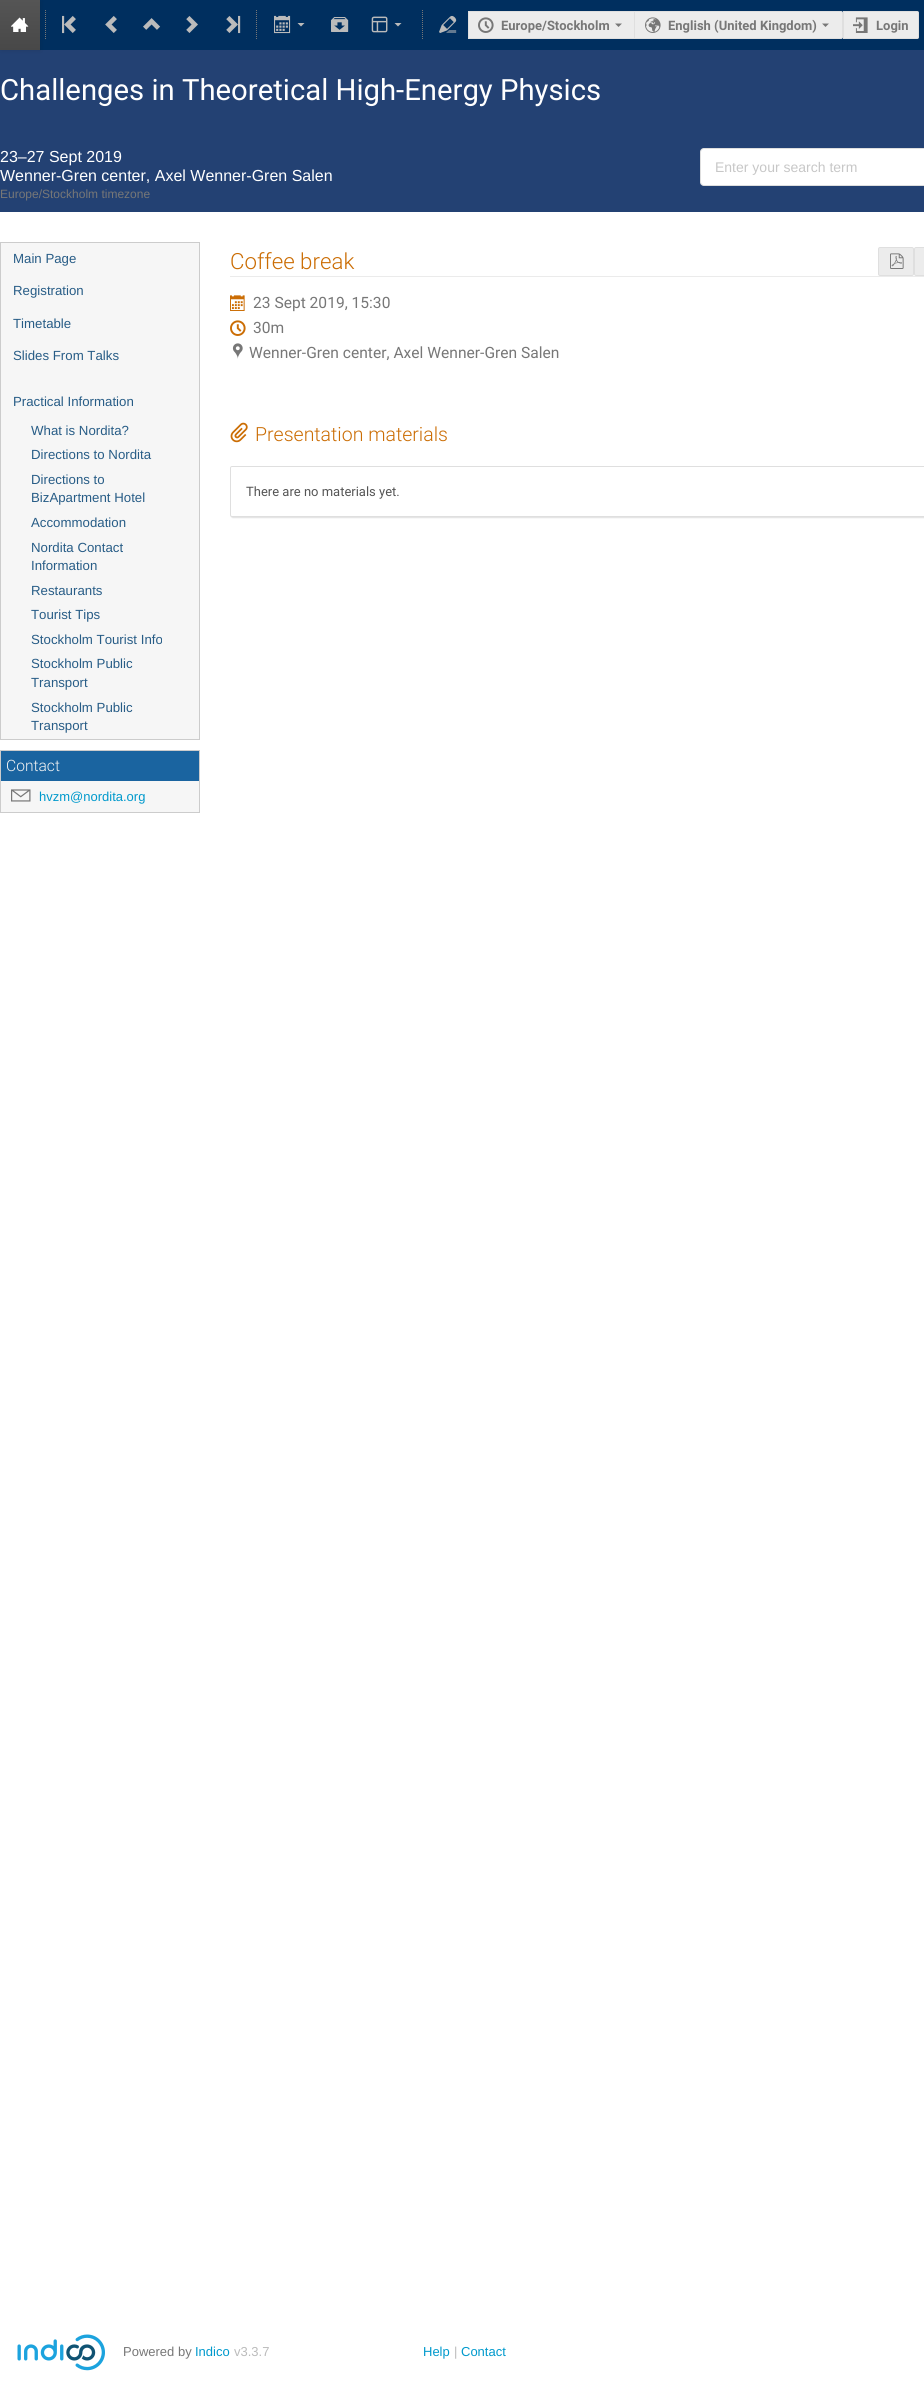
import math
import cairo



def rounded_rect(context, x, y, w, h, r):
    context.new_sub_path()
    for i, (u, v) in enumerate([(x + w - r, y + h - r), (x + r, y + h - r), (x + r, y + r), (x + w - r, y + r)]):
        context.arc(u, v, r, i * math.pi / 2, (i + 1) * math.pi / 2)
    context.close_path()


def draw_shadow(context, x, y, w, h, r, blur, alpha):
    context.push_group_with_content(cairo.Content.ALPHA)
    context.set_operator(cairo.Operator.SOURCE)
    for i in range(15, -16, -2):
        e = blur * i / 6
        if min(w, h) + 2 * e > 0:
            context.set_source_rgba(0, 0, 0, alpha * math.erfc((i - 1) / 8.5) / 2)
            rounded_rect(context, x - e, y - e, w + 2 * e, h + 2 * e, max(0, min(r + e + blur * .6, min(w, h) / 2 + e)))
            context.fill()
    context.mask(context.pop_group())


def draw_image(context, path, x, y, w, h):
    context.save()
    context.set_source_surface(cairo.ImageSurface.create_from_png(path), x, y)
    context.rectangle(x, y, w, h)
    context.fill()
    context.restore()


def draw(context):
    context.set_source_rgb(1, 1, 1)
    context.paint()
    context.set_source_rgb(0, 47 / 255, 95 / 255)
    context.rectangle(40, 0, 884, 50)
    context.fill()
    context.set_source_rgb(35 / 255, 65 / 255, 115 / 255)
    context.rectangle(0, 50, 924, 162)
    context.fill()
    context.set_source_rgb(20 / 255, 20 / 255, 20 / 255)
    draw_shadow(context, 1, 1, 40, 50, 0, 2, 0.1)
    gradient = cairo.LinearGradient(20, 0, 20, 50)
    gradient.add_color_stop_rgba(0, 85 / 255, 85 / 255, 85 / 255, 1)
    gradient.add_color_stop_rgba(1, 72 / 255, 72 / 255, 72 / 255, 1)
    context.set_source(gradient)
    context.rectangle(0, 0, 40, 50)
    context.fill()
    draw_image(context, "images/1.png", 11, 17, 18, 15)
    context.new_path()
    context.move_to(45.5, 10)
    context.line_to(45.5, 40)
    context.set_source_rgb(119 / 255, 119 / 255, 119 / 255)
    context.set_line_width(1)
    context.set_dash([1, 1])
    context.stroke()
    draw_image(context, "images/2.png", 62, 15, 14, 19)
    draw_image(context, "images/3.png", 105, 16, 12, 17)
    draw_image(context, "images/4.png", 143, 18, 18, 12)
    draw_image(context, "images/5.png", 186, 16, 12, 17)
    draw_image(context, "images/6.png", 226, 15, 15, 19)
    context.new_path()
    context.move_to(256.5, 10)
    context.line_to(256.5, 40)
    context.stroke()
    draw_image(context, "images/7.png", 274, 15, 17, 19)
    context.set_source_rgb(187 / 255, 187 / 255, 187 / 255)
    context.new_path()
    context.move_to(297.5, 23)
    context.line_to(301, 26.5)
    context.line_to(304.5, 23)
    context.close_path()
    context.fill()
    draw_image(context, "images/8.png", 331, 17, 18, 15)
    draw_image(context, "images/9.png", 371, 16, 17, 17)
    context.new_path()
    context.move_to(394.5, 23)
    context.line_to(398, 26.5)
    context.line_to(401.5, 23)
    context.close_path()
    context.fill()
    context.new_path()
    context.move_to(422.5, 10)
    context.line_to(422.5, 40)
    context.set_source_rgb(119 / 255, 119 / 255, 119 / 255)
    context.stroke()
    draw_image(context, "images/10.png", 439, 15, 18, 18)
    context.set_source_rgb(236 / 255, 236 / 255, 236 / 255)
    context.rectangle(469, 12, 165, 26)
    context.fill()
    context.set_source_rgb(223 / 255, 223 / 255, 223 / 255)
    context.rectangle(468, 11, 166, 1)
    context.fill()
    context.rectangle(468, 38, 166, 1)
    context.fill()
    context.rectangle(468, 11, 1, 28)
    context.fill()
    draw_image(context, "images/11.png", 478, 17, 16, 16)
    context.set_source_rgb(119 / 255, 119 / 255, 119 / 255)
    context.new_path()
    context.move_to(615, 23.5)
    context.line_to(618.5, 27)
    context.line_to(622, 23.5)
    context.close_path()
    context.fill()
    context.set_source_rgb(236 / 255, 236 / 255, 236 / 255)
    context.new_path()
    context.move_to(634.5, 11.5)
    context.line_to(841, 11.5)
    context.curve_to(842, 11.5, 842.5, 12, 842.5, 13)
    context.line_to(842.5, 37)
    context.curve_to(842.5, 38, 842, 38.5, 841, 38.5)
    context.line_to(634.5, 38.5)
    context.close_path()
    context.fill_preserve()
    context.set_source_rgb(223 / 255, 223 / 255, 223 / 255)
    context.set_dash([])
    context.stroke()
    draw_image(context, "images/12.png", 645, 17, 16, 16)
    context.set_source_rgb(119 / 255, 119 / 255, 119 / 255)
    context.new_path()
    context.move_to(822, 23.5)
    context.line_to(825.5, 27)
    context.line_to(829, 23.5)
    context.close_path()
    context.fill()
    context.set_source_rgb(236 / 255, 236 / 255, 236 / 255)
    context.new_path()
    context.move_to(843.5, 11.5)
    context.line_to(917, 11.5)
    context.curve_to(918, 11.5, 918.5, 12, 918.5, 13)
    context.line_to(918.5, 37)
    context.curve_to(918.5, 38, 918, 38.5, 917, 38.5)
    context.line_to(843.5, 38.5)
    context.close_path()
    context.fill_preserve()
    context.set_source_rgb(223 / 255, 223 / 255, 223 / 255)
    context.stroke()
    draw_image(context, "images/13.png", 853, 17, 15, 16)
    context.set_source_rgb(1, 1, 1)
    rounded_rect(context, 700, 148, 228, 38, 4)
    context.fill()
    rounded_rect(context, 700.5, 148.5, 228, 37, 3.5)
    context.set_source_rgba(34 / 255, 36 / 255, 38 / 255, 0.15)
    context.stroke()
    context.set_source_rgb(246 / 255, 246 / 255, 246 / 255)
    context.rectangle(0.5, 242.5, 199, 497)
    context.fill_preserve()
    context.set_source_rgb(204 / 255, 204 / 255, 204 / 255)
    context.stroke()
    context.set_source_rgb(246 / 255, 246 / 255, 246 / 255)
    context.rectangle(1, 781, 198, 31)
    context.fill()
    context.rectangle(0.5, 750.5, 199, 62)
    context.set_source_rgb(204 / 255, 204 / 255, 204 / 255)
    context.stroke()
    context.set_source_rgb(26 / 255, 100 / 255, 160 / 255)
    context.rectangle(1, 751, 198, 30)
    context.fill()
    draw_image(context, "images/14.png", 11, 789, 20, 13)
    context.set_source_rgb(235 / 255, 235 / 255, 235 / 255)
    context.rectangle(230, 276, 694, 1)
    context.fill()
    context.set_source_rgb(236 / 255, 236 / 255, 236 / 255)
    rounded_rect(context, 878.5, 247.5, 35, 28, 1.5)
    context.fill_preserve()
    context.set_source_rgb(223 / 255, 223 / 255, 223 / 255)
    context.stroke()
    draw_image(context, "images/15.png", 890, 253, 14, 16)
    context.set_source_rgb(236 / 255, 236 / 255, 236 / 255)
    rounded_rect(context, 914.5, 247.5, 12, 28, 1.5)
    context.fill_preserve()
    context.set_source_rgb(223 / 255, 223 / 255, 223 / 255)
    context.stroke()
    draw_image(context, "images/16.png", 230, 295, 15, 16)
    draw_image(context, "images/17.png", 230, 320, 16, 16)
    draw_image(context, "images/18.png", 232, 343, 11, 16)
    draw_image(context, "images/19.png", 230, 422, 18, 21)
    context.set_source_rgb(225 / 255, 225 / 255, 225 / 255)
    draw_shadow(context, 231, 467, 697, 51, 2, 0.5, 1)
    context.set_source_rgb(1, 1, 1)
    rounded_rect(context, 230.5, 466.5, 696, 50, 1.5)
    context.fill_preserve()
    context.set_source_rgb(223 / 255, 223 / 255, 223 / 255)
    context.stroke()
    draw_image(context, "images/20.png", 17, 2334, 88, 37)
    context.select_font_face("Roboto", cairo.FontSlant.NORMAL, cairo.FontWeight.BOLD)
    context.set_font_size(13)
    context.set_source_rgb(119 / 255, 119 / 255, 119 / 255)
    context.move_to(501, 30)
    context.show_text("Europe/Stockholm")
    context.move_to(668, 30)
    context.show_text("English (United Kingdom)")
    context.move_to(876, 30)
    context.show_text("Login")
    context.select_font_face("Roboto")
    context.set_font_size(29.3)
    context.set_source_rgb(1, 1, 1)
    context.move_to(0, 100)
    context.show_text("Challenges in Theoretical High-Energy Physics")
    context.select_font_face("Liberation Sans")
    context.set_font_size(16)
    context.move_to(0, 162)
    context.show_text("23–27 Sept 2019")
    context.move_to(0, 181)
    context.show_text("Wenner-Gren center, Axel Wenner-Gren Salen")
    context.set_font_size(12)
    context.set_source_rgb(119 / 255, 119 / 255, 119 / 255)
    context.move_to(0, 198)
    context.show_text("Europe/Stockholm timezone")
    context.select_font_face("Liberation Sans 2")
    context.set_font_size(14)
    context.set_source_rgb(199 / 255, 199 / 255, 199 / 255)
    context.move_to(715, 172)
    context.show_text("Enter your search term")
    context.set_font_size(13.25)
    context.set_source_rgb(39 / 255, 92 / 255, 134 / 255)
    context.move_to(13, 263)
    context.show_text("Main Page")
    context.move_to(13, 295)
    context.show_text("Registration")
    context.move_to(13, 328)
    context.show_text("Timetable")
    context.move_to(13, 360)
    context.show_text("Slides From Talks")
    context.move_to(13, 406)
    context.show_text("Practical Information")
    context.move_to(31, 435)
    context.show_text("What is Nordita?")
    context.move_to(31, 459)
    context.show_text("Directions to Nordita")
    context.move_to(31, 484)
    context.show_text("Directions to")
    context.move_to(31, 502)
    context.show_text("BizApartment Hotel")
    context.move_to(31, 527)
    context.show_text("Accommodation")
    context.move_to(31, 552)
    context.show_text("Nordita Contact")
    context.move_to(31, 570)
    context.show_text("Information")
    context.move_to(31, 595)
    context.show_text("Restaurants")
    context.move_to(31, 619)
    context.show_text("Tourist Tips")
    context.move_to(31, 644)
    context.show_text("Stockholm Tourist Info")
    context.move_to(31, 668)
    context.show_text("Stockholm Public")
    context.move_to(31, 687)
    context.show_text("Transport")
    context.move_to(31, 712)
    context.show_text("Stockholm Public")
    context.move_to(31, 730)
    context.show_text("Transport")
    context.select_font_face("Roboto Light")
    context.set_font_size(15.6)
    context.set_source_rgb(243 / 255, 243 / 255, 243 / 255)
    context.move_to(6, 771)
    context.show_text("Contact")
    context.select_font_face("Liberation Sans")
    context.set_font_size(13)
    context.set_source_rgb(0, 153 / 255, 204 / 255)
    context.move_to(39, 801)
    context.show_text("hvzm@nordita.org")
    context.select_font_face("Roboto Light")
    context.set_font_size(22.25)
    context.set_source_rgb(203 / 255, 109 / 255, 4 / 255)
    context.move_to(230, 269)
    context.show_text("Coffee break")
    context.select_font_face("Roboto")
    context.set_font_size(15.6)
    context.set_source_rgb(119 / 255, 119 / 255, 119 / 255)
    context.move_to(253, 308)
    context.show_text("23 Sept 2019, 15:30")
    context.move_to(253, 333)
    context.show_text("30m")
    context.move_to(249, 358)
    context.show_text("Wenner-Gren center, Axel Wenner-Gren Salen")
    context.select_font_face("Roboto Light")
    context.set_font_size(19.5)
    context.set_source_rgb(203 / 255, 109 / 255, 4 / 255)
    context.move_to(255, 441)
    context.show_text("Presentation materials")
    context.select_font_face("Roboto")
    context.set_font_size(13)
    context.set_source_rgb(85 / 255, 85 / 255, 85 / 255)
    context.move_to(246, 496)
    context.show_text("There are no materials yet.")
    context.select_font_face("Liberation Sans")
    context.set_source_rgb(119 / 255, 119 / 255, 119 / 255)
    context.move_to(123, 2356)
    context.show_text("Powered by")
    context.set_source_rgb(0, 153 / 255, 204 / 255)
    context.move_to(195, 2356)
    context.show_text("Indico")
    context.set_source_rgb(187 / 255, 187 / 255, 187 / 255)
    context.move_to(234, 2356)
    context.show_text("v3.3.7")
    context.set_source_rgb(0, 153 / 255, 204 / 255)
    context.move_to(423, 2356)
    context.show_text("Help")
    context.set_source_rgb(187 / 255, 187 / 255, 187 / 255)
    context.move_to(454, 2356)
    context.show_text("|")
    context.set_source_rgb(0, 153 / 255, 204 / 255)
    context.move_to(461, 2356)
    context.show_text("Contact")


surface = cairo.ImageSurface(cairo.Format.RGB24, 924, 2382)
context = cairo.Context(surface)
options = cairo.FontOptions()
options.set_hint_metrics(cairo.HintMetrics.OFF)
options.set_hint_style(cairo.HintStyle.NONE)
context.set_font_options(options)
context.set_miter_limit(4)
draw(context)
surface.write_to_png("out.png")
